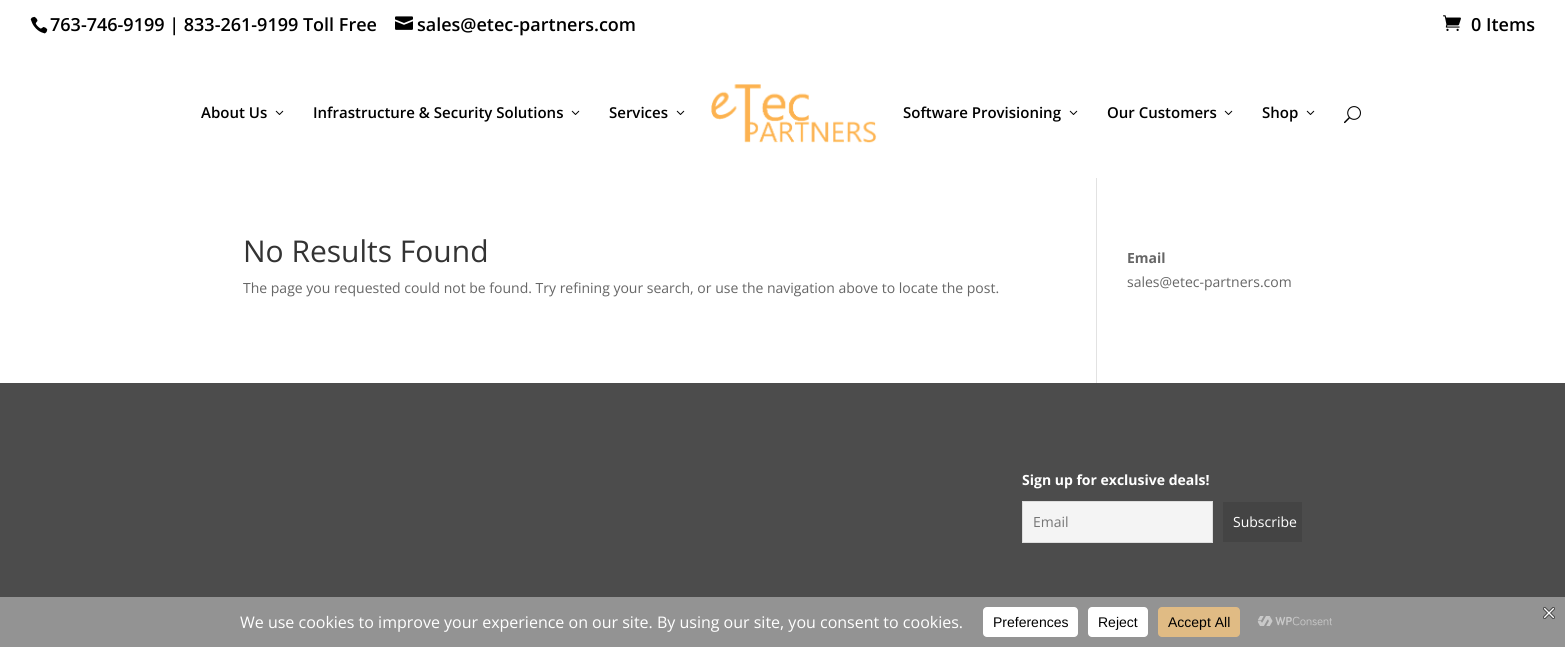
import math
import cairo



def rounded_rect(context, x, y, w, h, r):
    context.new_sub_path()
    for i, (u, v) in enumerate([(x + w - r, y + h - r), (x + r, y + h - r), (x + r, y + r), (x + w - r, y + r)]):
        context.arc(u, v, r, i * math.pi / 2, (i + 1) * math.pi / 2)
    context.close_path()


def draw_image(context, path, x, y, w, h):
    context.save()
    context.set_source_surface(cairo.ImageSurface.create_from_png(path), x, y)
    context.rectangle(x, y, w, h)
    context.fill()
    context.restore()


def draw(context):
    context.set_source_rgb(1, 1, 1)
    context.paint()
    draw_image(context, "images/1.png", 30, 16, 18, 18)
    draw_image(context, "images/2.png", 395, 16, 18, 14)
    draw_image(context, "images/3.png", 1443, 15, 18, 16)
    draw_image(context, "images/4.png", 275, 110, 9, 5)
    draw_image(context, "images/4.png", 571, 110, 9, 5)
    draw_image(context, "images/4.png", 676, 110, 9, 5)
    draw_image(context, "images/5.png", 711, 84, 166, 59)
    draw_image(context, "images/4.png", 1069, 110, 9, 5)
    draw_image(context, "images/4.png", 1224, 110, 9, 5)
    draw_image(context, "images/4.png", 1306, 110, 9, 5)
    draw_image(context, "images/6.png", 1344, 106, 17, 18)
    context.set_source_rgb(226 / 255, 226 / 255, 226 / 255)
    context.rectangle(1096, 178, 1, 205)
    context.fill()
    context.set_source_rgb(76 / 255, 76 / 255, 76 / 255)
    context.rectangle(0, 383, 1565, 214)
    context.fill()
    context.set_source_rgb(244 / 255, 244 / 255, 244 / 255)
    context.rectangle(1022.5, 501.5, 190, 41)
    context.fill_preserve()
    context.set_source_rgb(221 / 255, 221 / 255, 221 / 255)
    context.set_line_width(1)
    context.stroke()
    context.set_source_rgb(68 / 255, 68 / 255, 68 / 255)
    context.rectangle(1223, 502, 79, 40)
    context.fill()
    context.set_source_rgb(147 / 255, 147 / 255, 147 / 255)
    context.rectangle(0, 597, 1565, 50)
    context.fill()
    draw_image(context, "images/7.png", 1543, 607, 12, 12)
    context.set_source_rgb(1, 1, 1)
    rounded_rect(context, 983, 607, 95, 30, 4)
    context.fill()
    rounded_rect(context, 1088, 607, 60, 30, 4)
    context.fill()
    context.set_source_rgb(224 / 255, 187 / 255, 132 / 255)
    rounded_rect(context, 1158, 607, 82, 30, 4)
    context.fill()
    draw_image(context, "images/8.png", 1257, 616, 75, 10)
    context.select_font_face("Open Sans SemiBold")
    context.set_font_size(18)
    context.set_source_rgb(0, 0, 0)
    context.move_to(50, 31)
    context.show_text("763-746-9199 | 833-261-9199 Toll Free")
    context.move_to(417, 31)
    context.show_text("sales@etec-partners.com")
    context.move_to(1471, 31)
    context.show_text("0 Items")
    context.set_font_size(15)
    context.move_to(201, 118)
    context.show_text("About Us")
    context.move_to(313, 118)
    context.show_text("Infrastructure & Security Solutions")
    context.move_to(609, 118)
    context.show_text("Services")
    context.move_to(903, 118)
    context.show_text("Software Provisioning")
    context.move_to(1107, 118)
    context.show_text("Our Customers")
    context.move_to(1262, 118)
    context.show_text("Shop")
    context.select_font_face("Open Sans")
    context.set_font_size(30)
    context.set_source_rgb(51 / 255, 51 / 255, 51 / 255)
    context.move_to(243, 262)
    context.show_text("No Results Found")
    context.set_font_size(14)
    context.set_source_rgb(102 / 255, 102 / 255, 102 / 255)
    context.move_to(243, 293)
    context.show_text("The page you requested could not be found. Try refining your search, or use the navigation above to locate the post.")
    context.select_font_face("Open Sans", cairo.FontSlant.NORMAL, cairo.FontWeight.BOLD)
    context.move_to(1127, 263)
    context.show_text("Email")
    context.select_font_face("Open Sans")
    context.move_to(1127, 287)
    context.show_text("sales@etec-partners.com")
    context.select_font_face("Open Sans", cairo.FontSlant.NORMAL, cairo.FontWeight.BOLD)
    context.set_source_rgb(1, 1, 1)
    context.move_to(1022, 485)
    context.show_text("Sign up for exclusive deals!")
    context.select_font_face("Open Sans")
    context.set_source_rgb(117 / 255, 117 / 255, 117 / 255)
    context.move_to(1033, 527)
    context.show_text("Email")
    context.set_source_rgb(1, 1, 1)
    context.move_to(1233, 527)
    context.show_text("Subscribe")
    context.set_font_size(16)
    context.move_to(240, 628)
    context.show_text("We use cookies to improve your experience on our site. By using our site, you consent to cookies.")
    context.select_font_face("Liberation Sans")
    context.set_font_size(14)
    context.set_source_rgb(0, 0, 0)
    context.move_to(993, 627)
    context.show_text("Preferences")
    context.move_to(1098, 627)
    context.show_text("Reject")
    context.move_to(1168, 627)
    context.show_text("Accept All")


surface = cairo.ImageSurface(cairo.Format.RGB24, 1565, 647)
context = cairo.Context(surface)
options = cairo.FontOptions()
options.set_hint_metrics(cairo.HintMetrics.OFF)
options.set_hint_style(cairo.HintStyle.NONE)
context.set_font_options(options)
context.set_miter_limit(4)
draw(context)
surface.write_to_png("out.png")
